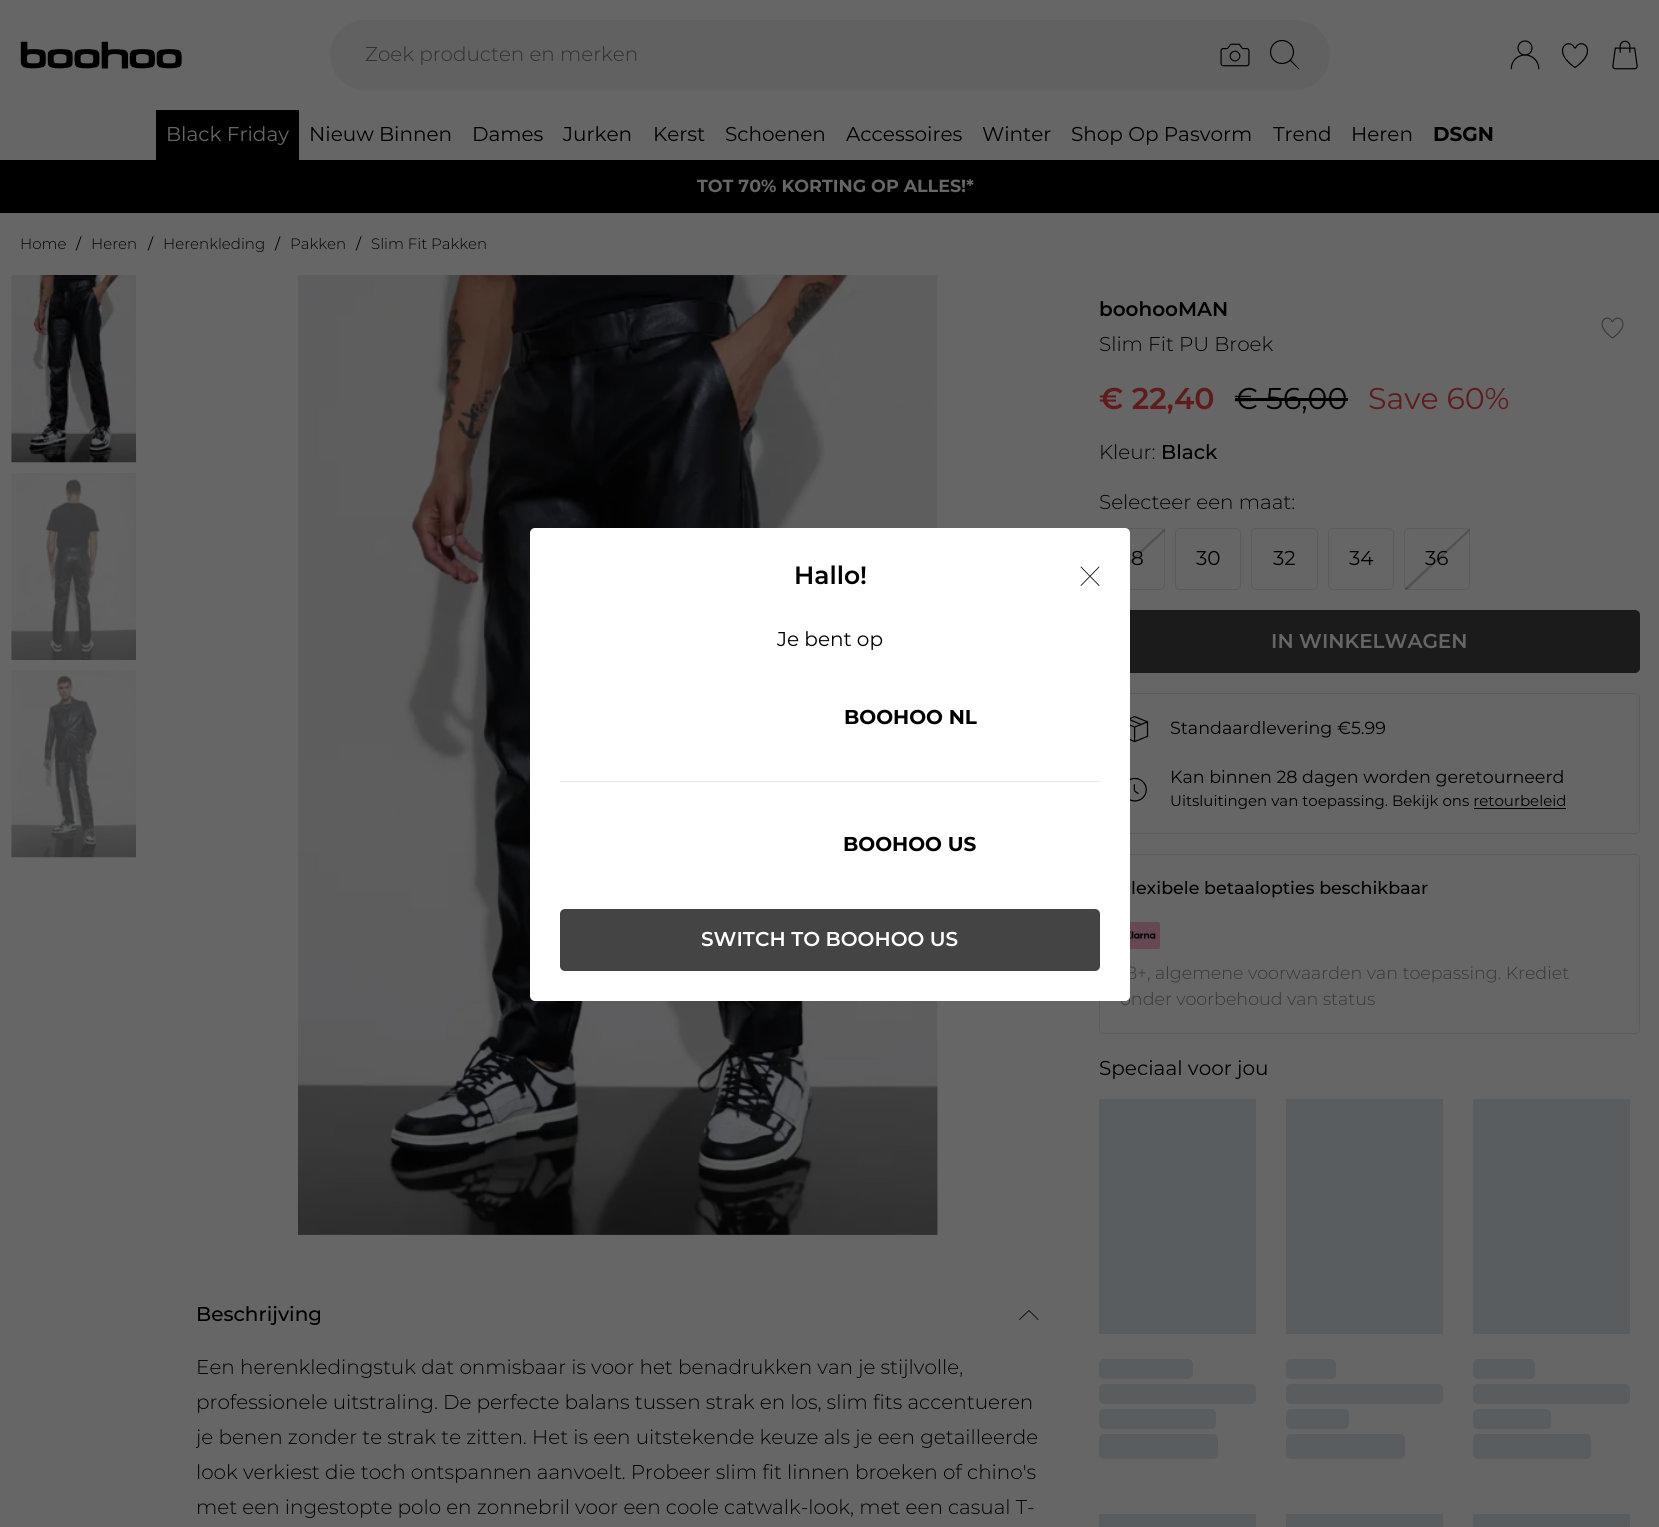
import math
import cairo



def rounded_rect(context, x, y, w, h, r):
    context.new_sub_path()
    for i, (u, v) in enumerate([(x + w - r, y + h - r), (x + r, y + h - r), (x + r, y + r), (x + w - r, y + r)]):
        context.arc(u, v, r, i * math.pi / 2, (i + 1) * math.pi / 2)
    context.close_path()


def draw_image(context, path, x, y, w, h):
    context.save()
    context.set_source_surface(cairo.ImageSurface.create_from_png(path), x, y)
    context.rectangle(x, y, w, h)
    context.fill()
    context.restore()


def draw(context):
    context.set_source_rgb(102 / 255, 102 / 255, 102 / 255)
    context.paint()
    draw_image(context, "images/1.png", 20, 41, 162, 28)
    context.set_source_rgb(97 / 255, 97 / 255, 97 / 255)
    rounded_rect(context, 330, 20, 1000, 70, 35)
    context.fill()
    draw_image(context, "images/2.png", 1220, 43, 30, 24)
    context.arc(1282, 52, 11.5, 0, 2 * math.pi)
    context.set_source_rgb(0, 0, 0)
    context.set_line_width(1.2)
    context.stroke()
    context.new_path()
    context.move_to(1298.5, 69)
    context.curve_to(1299, 70, 1300, 69, 1299, 68.5)
    context.close_path()
    context.move_to(1299, 68.5)
    context.line_to(1290.5, 59.5)
    context.line_to(1289.5, 60.5)
    context.line_to(1298.5, 69)
    context.close_path()
    context.fill()
    draw_image(context, "images/3.png", 1510, 40, 30, 30)
    draw_image(context, "images/4.png", 1561, 43, 28, 25)
    draw_image(context, "images/5.png", 1612, 40, 26, 30)
    context.rectangle(156, 110, 143, 50)
    context.fill()
    context.rectangle(0, 160, 1659, 53)
    context.fill()
    draw_image(context, "images/6.png", 1601, 317, 23, 22)
    context.rectangle(1235, 398, 113, 3)
    context.fill()
    rounded_rect(context, 1099.5, 528.5, 65, 61, 4.5)
    context.set_source_rgb(92 / 255, 92 / 255, 94 / 255)
    context.set_line_width(1)
    context.stroke()
    rounded_rect(context, 1175.5, 528.5, 65, 61, 4.5)
    context.stroke()
    rounded_rect(context, 1251.5, 528.5, 66, 61, 4.5)
    context.stroke()
    rounded_rect(context, 1328.5, 528.5, 65, 61, 4.5)
    context.stroke()
    rounded_rect(context, 1404.5, 528.5, 65, 61, 4.5)
    context.stroke()
    context.set_source_rgb(27 / 255, 27 / 255, 27 / 255)
    rounded_rect(context, 1099, 610, 541, 63, 5)
    context.fill()
    rounded_rect(context, 1099.5, 693.5, 540, 140, 4.5)
    context.set_source_rgb(92 / 255, 92 / 255, 92 / 255)
    context.stroke()
    draw_image(context, "images/7.png", 1130, 716, 19, 27)
    draw_image(context, "images/8.png", 1130, 777, 17, 25)
    context.set_source_rgb(0, 0, 0)
    context.rectangle(1474, 808, 92, 1)
    context.fill()
    rounded_rect(context, 1099.5, 854.5, 540, 179, 4.5)
    context.set_source_rgb(92 / 255, 92 / 255, 92 / 255)
    context.stroke()
    draw_image(context, "images/9.png", 1130, 922, 30, 27)
    context.set_source_rgb(90 / 255, 93 / 255, 96 / 255)
    context.rectangle(1099, 1099, 157, 235)
    context.fill()
    rounded_rect(context, 1099, 1359, 94, 20, 5)
    context.fill()
    rounded_rect(context, 1099, 1384, 157, 20, 5)
    context.fill()
    rounded_rect(context, 1099, 1409, 117, 20, 5)
    context.fill()
    rounded_rect(context, 1099, 1434, 119, 25, 5)
    context.fill()
    context.rectangle(1286, 1099, 157, 235)
    context.fill()
    rounded_rect(context, 1286, 1359, 50, 20, 5)
    context.fill()
    rounded_rect(context, 1286, 1384, 157, 20, 5)
    context.fill()
    rounded_rect(context, 1286, 1409, 63, 20, 5)
    context.fill()
    rounded_rect(context, 1286, 1434, 119, 25, 5)
    context.fill()
    context.rectangle(1473, 1099, 157, 235)
    context.fill()
    rounded_rect(context, 1473, 1359, 62, 20, 5)
    context.fill()
    rounded_rect(context, 1473, 1384, 157, 20, 5)
    context.fill()
    rounded_rect(context, 1473, 1409, 78, 20, 5)
    context.fill()
    rounded_rect(context, 1473, 1434, 118, 25, 5)
    context.fill()
    context.rectangle(1099, 1514, 157, 13)
    context.fill()
    context.rectangle(1286, 1514, 157, 13)
    context.fill()
    context.rectangle(1473, 1514, 157, 13)
    context.fill()
    draw_image(context, "images/10.png", 11, 275, 126, 188)
    draw_image(context, "images/11.png", 11, 473, 126, 187)
    draw_image(context, "images/12.png", 11, 670, 126, 188)
    draw_image(context, "images/13.png", 298, 275, 640, 960)
    context.new_path()
    context.move_to(1038, 1319.5)
    context.line_to(1029, 1310.5)
    context.line_to(1019.5, 1319.5)
    context.set_source_rgb(0, 0, 0)
    context.set_line_width(0.8)
    context.set_line_cap(cairo.LineCap.ROUND)
    context.stroke()
    context.select_font_face("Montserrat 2 Thin")
    context.set_font_size(20)
    context.set_source_rgb(47 / 255, 47 / 255, 47 / 255)
    context.move_to(365, 61)
    context.show_text("Zoek producten en merken")
    context.select_font_face("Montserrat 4 Thin")
    context.set_source_rgb(102 / 255, 102 / 255, 102 / 255)
    context.move_to(166, 141)
    context.show_text("Black Friday")
    context.set_source_rgb(0, 0, 0)
    context.move_to(309, 141)
    context.show_text("Nieuw Binnen")
    context.move_to(472, 141)
    context.show_text("Dames")
    context.move_to(563, 141)
    context.show_text("Jurken")
    context.move_to(653, 141)
    context.show_text("Kerst")
    context.move_to(725, 141)
    context.show_text("Schoenen")
    context.move_to(846, 141)
    context.show_text("Accessoires")
    context.move_to(982, 141)
    context.show_text("Winter")
    context.move_to(1071, 141)
    context.show_text("Shop Op Pasvorm")
    context.move_to(1273, 141)
    context.show_text("Trend")
    context.move_to(1351, 141)
    context.show_text("Heren")
    context.select_font_face("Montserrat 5 Thin")
    context.move_to(1433, 141)
    context.show_text("DSGN")
    context.set_font_size(17.5)
    context.set_source_rgb(102 / 255, 102 / 255, 102 / 255)
    context.move_to(697, 192)
    context.show_text("TOT 70% KORTING OP ALLES!*")
    context.select_font_face("Montserrat 2 Thin")
    context.set_font_size(15)
    context.set_source_rgb(0, 0, 0)
    context.move_to(20, 249)
    context.show_text("Home")
    context.select_font_face("Montserrat 4 Thin")
    context.move_to(76, 249)
    context.show_text("/")
    context.select_font_face("Montserrat 2 Thin")
    context.move_to(91, 249)
    context.show_text("Heren")
    context.select_font_face("Montserrat 4 Thin")
    context.move_to(148, 249)
    context.show_text("/")
    context.select_font_face("Montserrat 2 Thin")
    context.move_to(163, 249)
    context.show_text("Herenkleding")
    context.select_font_face("Montserrat 4 Thin")
    context.move_to(275, 249)
    context.show_text("/")
    context.select_font_face("Montserrat 2 Thin")
    context.move_to(290, 249)
    context.show_text("Pakken")
    context.select_font_face("Montserrat 4 Thin")
    context.move_to(356, 249)
    context.show_text("/")
    context.select_font_face("Montserrat 2 Thin")
    context.move_to(371, 249)
    context.show_text("Slim Fit Pakken")
    context.select_font_face("Montserrat Thin")
    context.set_font_size(20)
    context.move_to(1099, 316)
    context.show_text("boohooMAN")
    context.select_font_face("Montserrat 2 Thin")
    context.move_to(1099, 351)
    context.show_text("Slim Fit PU Broek")
    context.select_font_face("Montserrat Thin")
    context.set_font_size(30)
    context.set_source_rgb(96 / 255, 27 / 255, 27 / 255)
    context.move_to(1099, 409)
    context.show_text("€ 22,40")
    context.select_font_face("Montserrat 4 Thin")
    context.set_source_rgb(0, 0, 0)
    context.move_to(1234, 409)
    context.show_text("€ 56,00")
    context.set_source_rgb(96 / 255, 27 / 255, 27 / 255)
    context.move_to(1368, 409)
    context.show_text("Save 60%")
    context.select_font_face("Montserrat 2 Thin")
    context.set_font_size(20)
    context.set_source_rgb(0, 0, 0)
    context.move_to(1099, 459)
    context.show_text("Kleur:")
    context.select_font_face("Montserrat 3 Thin")
    context.move_to(1161, 459)
    context.show_text("Black")
    context.select_font_face("Montserrat 2 Thin")
    context.move_to(1099, 509)
    context.show_text("Selecteer een maat:")
    context.select_font_face("Montserrat 4 Thin")
    context.move_to(1131, 565)
    context.show_text("8")
    context.save()
    context.rectangle(1100, 528, 65, 62)
    context.clip()
    context.set_source_rgba(0, 0, 0, 0.2)
    context.new_path()
    context.move_to(1099, 589)
    context.line_to(1165, 528)
    context.line_to(1167, 529)
    context.line_to(1101, 591)
    context.fill()
    context.restore()
    context.move_to(1196, 565)
    context.show_text("30")
    context.move_to(1273, 565)
    context.show_text("32")
    context.move_to(1349, 565)
    context.show_text("34")
    context.move_to(1425, 565)
    context.show_text("36")
    context.save()
    context.rectangle(1405, 528, 65, 62)
    context.clip()
    context.set_source_rgba(0, 0, 0, 0.2)
    context.new_path()
    context.move_to(1404, 589)
    context.line_to(1470, 528)
    context.line_to(1472, 529)
    context.line_to(1406, 591)
    context.fill()
    context.restore()
    context.select_font_face("Montserrat Thin")
    context.set_source_rgb(102 / 255, 102 / 255, 102 / 255)
    context.move_to(1271, 648)
    context.show_text("IN WINKELWAGEN")
    context.select_font_face("Montserrat 4 Thin")
    context.set_font_size(17.5)
    context.set_source_rgb(0, 0, 0)
    context.move_to(1170, 734)
    context.show_text("Standaardlevering €5.99")
    context.move_to(1170, 783)
    context.show_text("Kan binnen 28 dagen worden geretourneerd")
    context.set_font_size(15)
    context.move_to(1170, 806)
    context.show_text("Uitsluitingen van toepassing. Bekijk ons retourbeleid")
    context.select_font_face("Montserrat 3 Thin")
    context.set_font_size(17.5)
    context.move_to(1131, 894)
    context.show_text("lexibele betaalopties beschikbaar")
    context.select_font_face("Montserrat 2 Thin")
    context.set_source_rgb(54 / 255, 54 / 255, 54 / 255)
    context.move_to(1126, 979)
    context.show_text("8+, algemene voorwaarden van toepassing. Krediet")
    context.move_to(1120, 1005)
    context.show_text("onder voorbehoud van status")
    context.select_font_face("Montserrat 4 Thin")
    context.set_font_size(20)
    context.set_source_rgb(0, 0, 0)
    context.move_to(1099, 1075)
    context.show_text("Speciaal voor jou")
    context.select_font_face("Montserrat 3 Thin")
    context.move_to(196, 1321)
    context.show_text("Beschrijving")
    context.select_font_face("Montserrat 2 Thin")
    context.move_to(196, 1374)
    context.show_text("Een herenkledingstuk dat onmisbaar is voor het benadrukken van je stijlvolle,")
    context.move_to(196, 1409)
    context.show_text("professionele uitstraling. De perfecte balans tussen strak en los, slim fits accentueren")
    context.save()
    context.rectangle(196, 1350, 843, 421)
    context.clip()
    context.move_to(196, 1444)
    context.show_text("je benen zonder te strak te zitten. Het is een uitstekende keuze als je een getailleerde")
    context.restore()
    context.move_to(196, 1479)
    context.show_text("look verkiest die toch ontspannen aanvoelt. Probeer slim fit linnen broeken of chino's")
    context.move_to(196, 1514)
    context.show_text("met een ingestopte polo en zonnebril voor een coole catwalk-look, met een casual T-")
    context.set_source_rgb(1, 1, 1)
    rounded_rect(context, 530, 528, 600, 473, 5)
    context.fill()
    context.select_font_face("Montserrat Thin")
    context.set_font_size(25)
    context.set_source_rgb(0, 0, 0)
    context.move_to(794, 584)
    context.show_text("Hallo!")
    context.new_path()
    context.move_to(1099, 567)
    context.line_to(1081, 585.5)
    context.move_to(1081, 567)
    context.line_to(1099, 585.5)
    context.stroke()
    context.select_font_face("Montserrat 4 Thin")
    context.set_font_size(20)
    context.move_to(777, 646)
    context.show_text("Je bent op")
    context.select_font_face("Montserrat 5 Thin")
    context.move_to(844, 724)
    context.show_text("BOOHOO NL")
    context.set_source_rgb(231 / 255, 231 / 255, 231 / 255)
    context.rectangle(560, 781, 540, 1)
    context.fill()
    context.set_source_rgb(0, 0, 0)
    context.move_to(843, 851)
    context.show_text("BOOHOO US")
    context.set_source_rgb(68 / 255, 68 / 255, 68 / 255)
    rounded_rect(context, 560, 909, 540, 62, 5)
    context.fill()
    context.select_font_face("Montserrat Thin")
    context.set_source_rgb(1, 1, 1)
    context.move_to(701, 946)
    context.show_text("SWITCH TO BOOHOO US")


surface = cairo.ImageSurface(cairo.Format.RGB24, 1659, 1527)
context = cairo.Context(surface)
options = cairo.FontOptions()
options.set_hint_metrics(cairo.HintMetrics.OFF)
options.set_hint_style(cairo.HintStyle.NONE)
context.set_font_options(options)
context.set_miter_limit(4)
draw(context)
surface.write_to_png("out.png")
